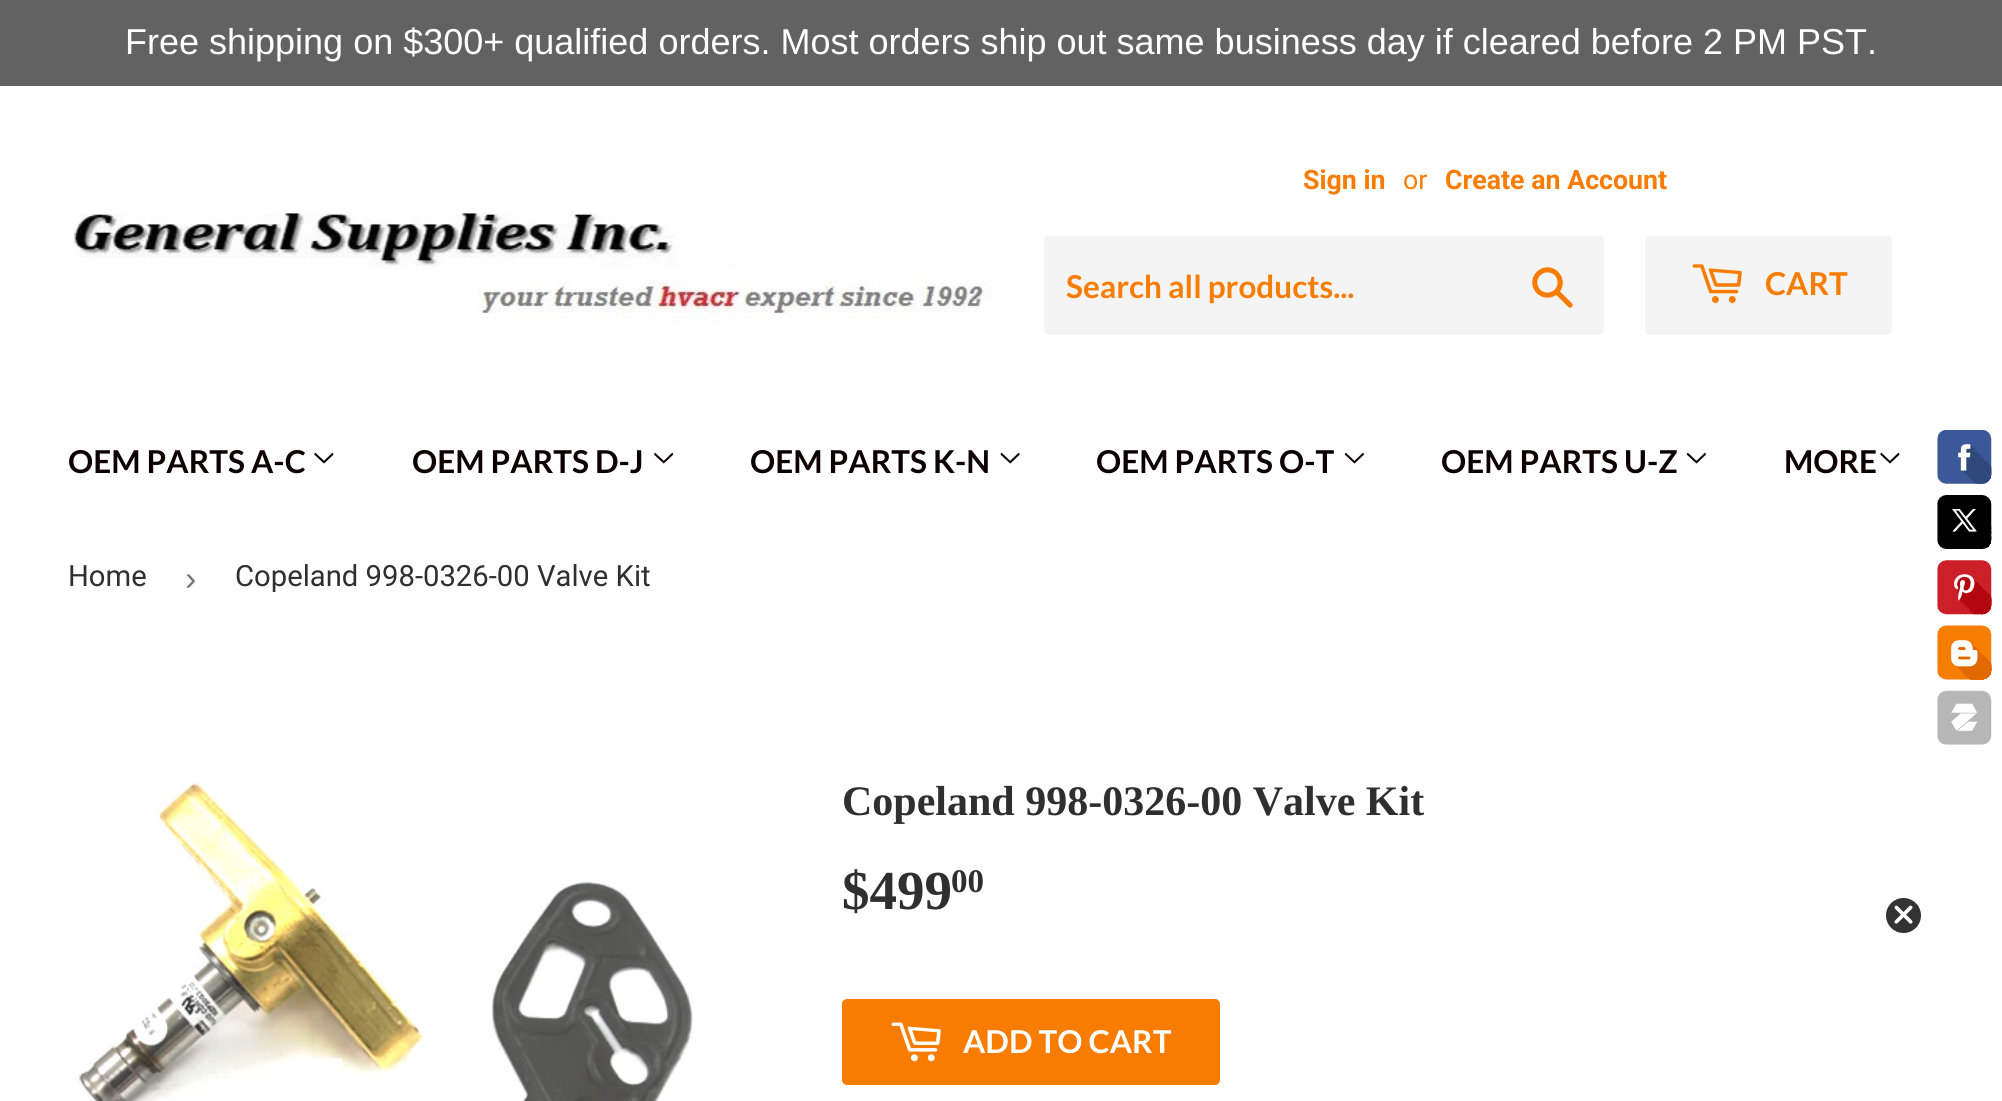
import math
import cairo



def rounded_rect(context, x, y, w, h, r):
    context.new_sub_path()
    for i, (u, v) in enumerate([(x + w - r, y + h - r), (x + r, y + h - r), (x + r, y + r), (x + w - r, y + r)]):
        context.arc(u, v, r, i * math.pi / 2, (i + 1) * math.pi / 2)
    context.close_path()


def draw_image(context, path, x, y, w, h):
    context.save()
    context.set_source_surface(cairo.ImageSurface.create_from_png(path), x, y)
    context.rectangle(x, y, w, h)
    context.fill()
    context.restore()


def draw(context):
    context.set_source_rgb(1, 1, 1)
    context.paint()
    context.set_source_rgb(98 / 255, 98 / 255, 98 / 255)
    context.rectangle(0, 0, 2002, 86)
    context.fill()
    draw_image(context, "images/1.png", 73, 213, 919, 109)
    context.set_source_rgb(244 / 255, 244 / 255, 244 / 255)
    rounded_rect(context, 1044, 236, 560, 99, 5)
    context.fill()
    draw_image(context, "images/2.png", 1532, 267, 41, 41)
    rounded_rect(context, 1645, 236, 247, 99, 5)
    context.fill()
    draw_image(context, "images/3.png", 1692, 264, 50, 39)
    draw_image(context, "images/4.png", 314, 452, 20, 12)
    draw_image(context, "images/5.png", 654, 452, 20, 12)
    draw_image(context, "images/6.png", 1000, 452, 20, 12)
    draw_image(context, "images/7.png", 1344, 452, 20, 12)
    draw_image(context, "images/7.png", 1686, 452, 20, 12)
    draw_image(context, "images/4.png", 1880, 452, 20, 12)
    draw_image(context, "images/8.png", 78, 781, 615, 320)
    context.set_source_rgb(247 / 255, 124 / 255, 0)
    rounded_rect(context, 842, 999, 378, 86, 5)
    context.fill()
    draw_image(context, "images/9.png", 891, 1022, 50, 40)
    context.set_source_rgb(51 / 255, 51 / 255, 51 / 255)
    context.arc(1903.5, 915.5, 20, 0, 2 * math.pi)
    context.fill_preserve()
    context.set_source_rgb(1, 1, 1)
    context.set_line_width(5)
    context.stroke()
    draw_image(context, "images/10.png", 1894, 905, 19, 19)
    draw_image(context, "images/11.png", 1937, 430, 55, 315)
    context.select_font_face("Liberation Sans")
    context.set_font_size(36)
    context.move_to(125, 54)
    context.show_text("Free shipping on $300+ qualified orders. Most orders ship out same business day if cleared before 2 PM PST.")
    context.select_font_face("Roboto", cairo.FontSlant.NORMAL, cairo.FontWeight.BOLD)
    context.set_font_size(26.75)
    context.set_source_rgb(247 / 255, 124 / 255, 0)
    context.move_to(1303, 189)
    context.show_text("Sign in")
    context.select_font_face("Roboto")
    context.move_to(1403, 189)
    context.show_text("or")
    context.select_font_face("Roboto", cairo.FontSlant.NORMAL, cairo.FontWeight.BOLD)
    context.move_to(1445, 189)
    context.show_text("Create an Account")
    context.select_font_face("Lato", cairo.FontSlant.NORMAL, cairo.FontWeight.BOLD)
    context.set_font_size(31.5)
    context.move_to(1066, 298)
    context.show_text("Search all products...")
    context.move_to(1765, 295)
    context.show_text("CART")
    context.set_source_rgb(12 / 255, 0, 0)
    context.move_to(68, 473)
    context.show_text("OEM PARTS A-C")
    context.move_to(412, 473)
    context.show_text("OEM PARTS D-J")
    context.move_to(750, 473)
    context.show_text("OEM PARTS K-N")
    context.move_to(1096, 473)
    context.show_text("OEM PARTS O-T")
    context.move_to(1441, 473)
    context.show_text("OEM PARTS U-Z")
    context.move_to(1784, 473)
    context.show_text("MORE")
    context.select_font_face("Roboto")
    context.set_font_size(29.25)
    context.set_source_rgb(47 / 255, 47 / 255, 47 / 255)
    context.move_to(68, 586)
    context.show_text("Home")
    context.select_font_face("Liberation Sans")
    context.set_font_size(34)
    context.set_source_rgb(118 / 255, 118 / 255, 118 / 255)
    context.move_to(185, 590)
    context.show_text("›")
    context.select_font_face("Roboto")
    context.set_font_size(29.25)
    context.set_source_rgb(47 / 255, 47 / 255, 47 / 255)
    context.move_to(235, 586)
    context.show_text("Copeland 998-0326-00 Valve Kit")
    context.select_font_face("Liberation Serif", cairo.FontSlant.NORMAL, cairo.FontWeight.BOLD)
    context.set_font_size(42)
    context.move_to(842, 815)
    context.show_text("Copeland 998-0326-00 Valve Kit")
    context.set_font_size(55)
    context.move_to(842, 909)
    context.show_text("$499")
    context.set_font_size(33)
    context.move_to(951, 892)
    context.show_text("00")
    context.select_font_face("Lato", cairo.FontSlant.NORMAL, cairo.FontWeight.BOLD)
    context.set_font_size(31.5)
    context.set_source_rgb(1, 1, 1)
    context.move_to(963, 1053)
    context.show_text("ADD TO CART")


surface = cairo.ImageSurface(cairo.Format.RGB24, 2002, 1101)
context = cairo.Context(surface)
options = cairo.FontOptions()
options.set_hint_metrics(cairo.HintMetrics.OFF)
options.set_hint_style(cairo.HintStyle.NONE)
context.set_font_options(options)
context.set_miter_limit(4)
draw(context)
surface.write_to_png("out.png")
